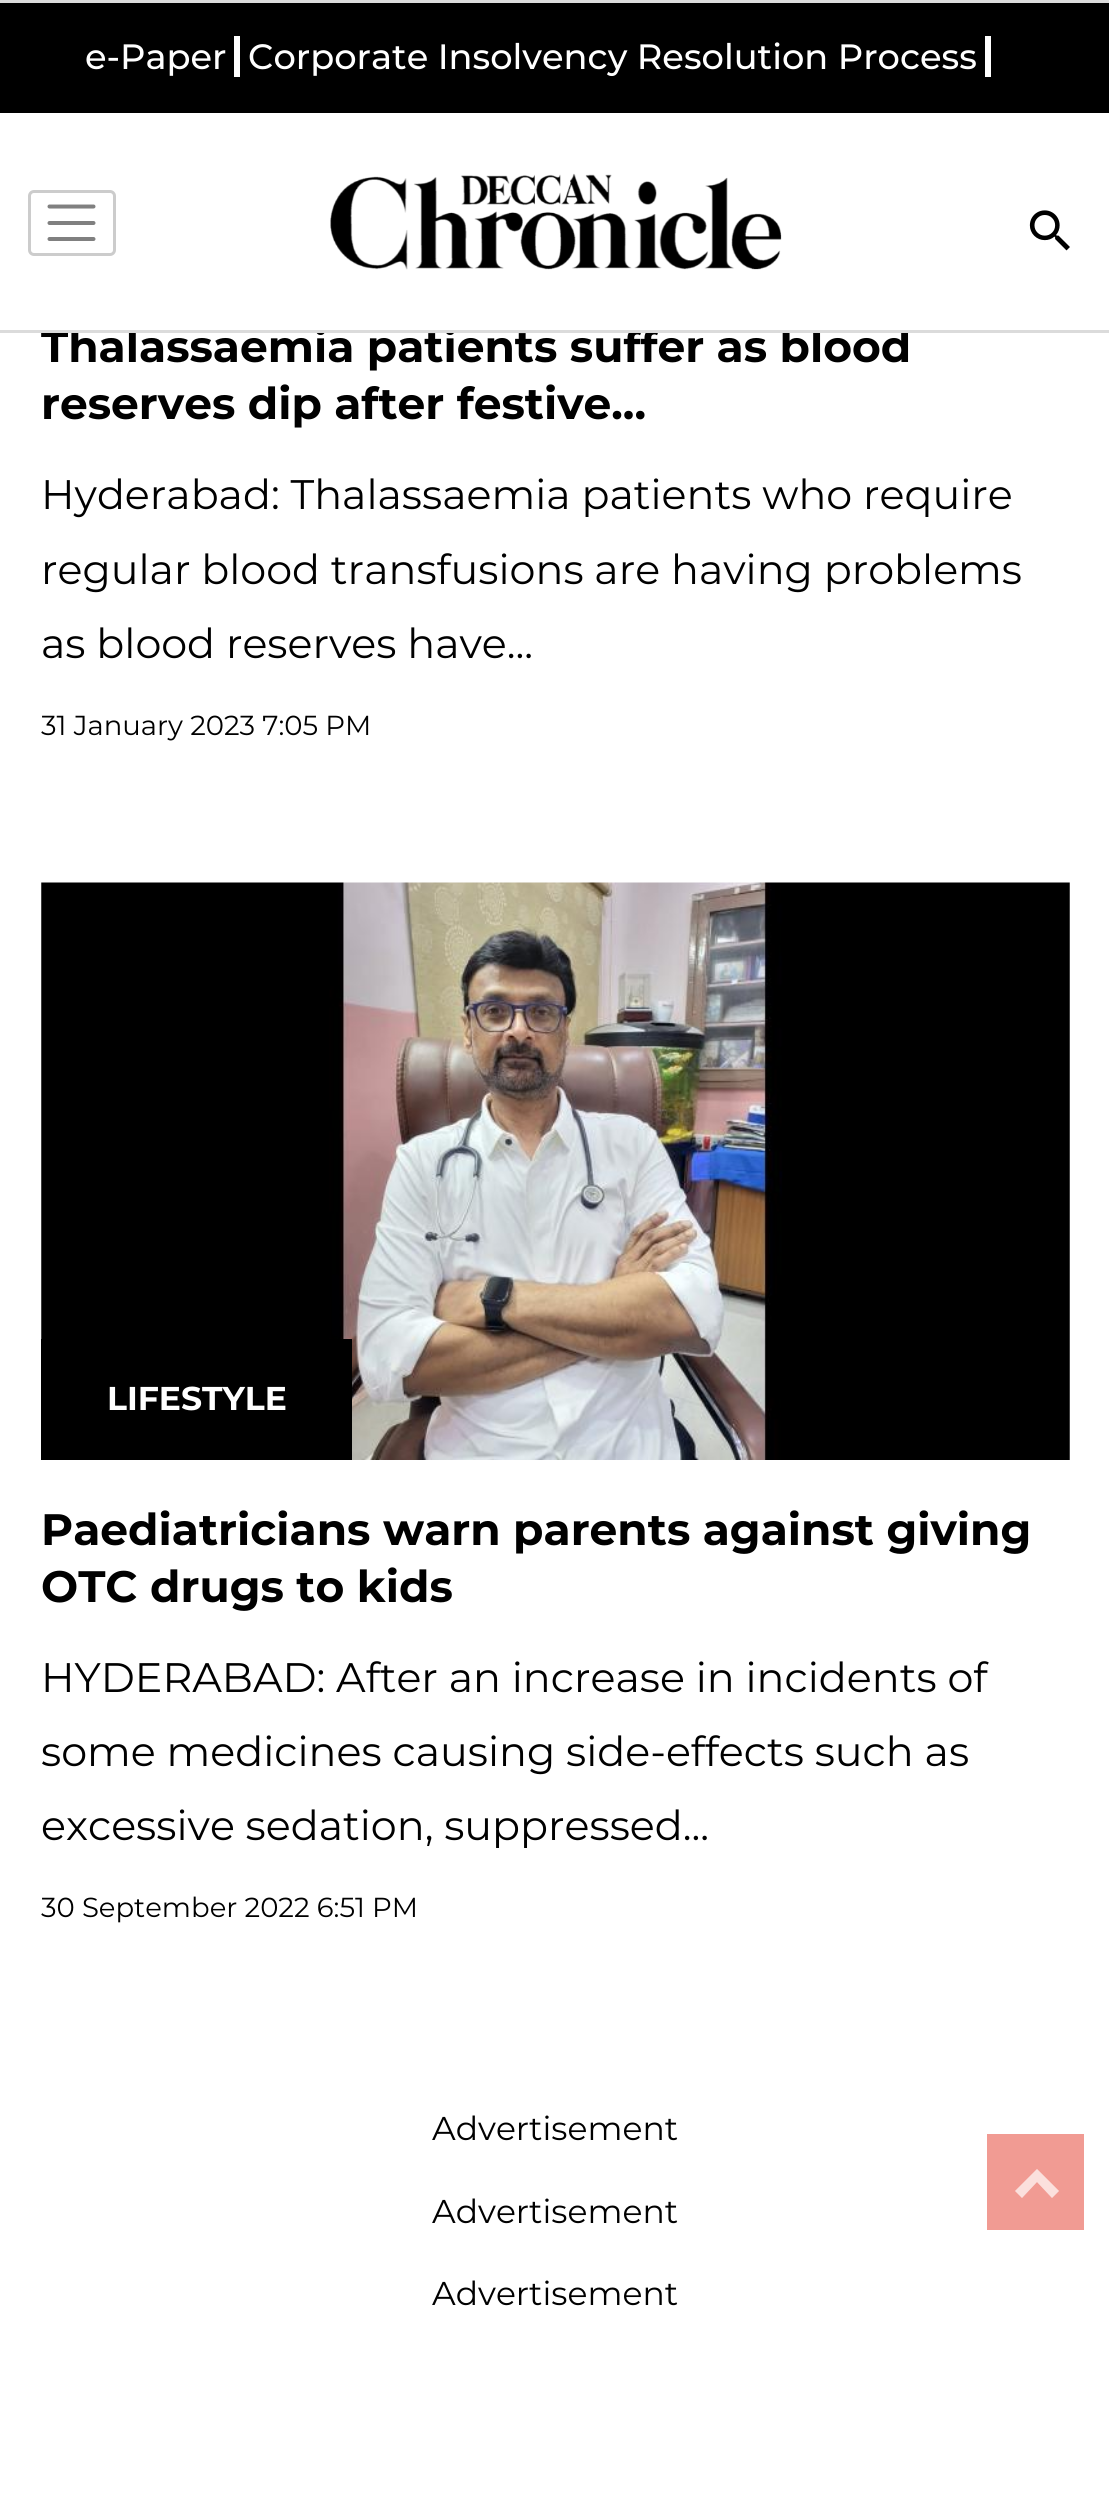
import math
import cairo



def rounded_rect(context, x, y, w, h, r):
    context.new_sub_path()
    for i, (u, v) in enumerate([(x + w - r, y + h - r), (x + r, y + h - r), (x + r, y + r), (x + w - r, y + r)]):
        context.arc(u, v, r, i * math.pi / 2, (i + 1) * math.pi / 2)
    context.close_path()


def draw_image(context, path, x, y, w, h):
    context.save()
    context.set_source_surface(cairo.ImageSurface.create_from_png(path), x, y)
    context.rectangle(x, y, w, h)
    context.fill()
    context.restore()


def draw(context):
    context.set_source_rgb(1, 1, 1)
    context.paint()
    context.set_source_rgb(219 / 255, 219 / 255, 219 / 255)
    context.rectangle(0, 0, 1109, 3)
    context.fill()
    draw_image(context, "images/1.png", 1029, 210, 41, 41)
    context.set_source_rgb(0, 0, 0)
    context.rectangle(0, 3, 1109, 110)
    context.fill()
    context.set_source_rgb(1, 1, 1)
    context.rectangle(234, 36, 6, 41)
    context.fill()
    context.rectangle(985, 36, 6, 41)
    context.fill()
    context.new_path()
    context.move_to(49.5, 206.5)
    context.line_to(93.5, 206.5)
    context.move_to(49.5, 223)
    context.line_to(93.5, 223)
    context.move_to(49.5, 239)
    context.line_to(93.5, 239)
    context.set_source_rgb(128 / 255, 128 / 255, 128 / 255)
    context.set_line_width(4)
    context.set_line_cap(cairo.LineCap.ROUND)
    context.stroke()
    rounded_rect(context, 29.5, 191.5, 85, 63, 4.5)
    context.set_source_rgb(204 / 255, 204 / 255, 204 / 255)
    context.set_line_width(3)
    context.set_line_cap(cairo.LineCap.BUTT)
    context.stroke()
    draw_image(context, "images/2.png", 330, 173, 452, 97)
    draw_image(context, "images/3.png", 41, 882, 1029, 578)
    context.set_source_rgb(0, 0, 0)
    context.rectangle(41, 1339, 311, 121)
    context.fill()
    context.set_source_rgb(246 / 255, 193 / 255, 188 / 255)
    context.rectangle(987, 2134, 97, 96)
    context.fill()
    context.set_source_rgb(1, 1, 1)
    context.new_path()
    context.move_to(1037, 2169)
    context.line_to(1059, 2191)
    context.line_to(1052, 2198)
    context.line_to(1037, 2182)
    context.line_to(1022, 2198)
    context.line_to(1015, 2191)
    context.close_path()
    context.fill()
    context.set_source_rgba(232 / 255, 98 / 255, 86 / 255, 0.4)
    context.rectangle(987, 2134, 97, 96)
    context.fill()
    context.set_source_rgba(1, 1, 1, 0.5)
    context.new_path()
    context.move_to(1037, 2169)
    context.line_to(1059, 2191)
    context.line_to(1052, 2198)
    context.line_to(1037, 2182)
    context.line_to(1022, 2198)
    context.line_to(1015, 2191)
    context.close_path()
    context.fill()
    context.select_font_face("Montserrat Medium")
    context.set_font_size(35.2)
    context.set_source_rgb(1, 1, 1)
    context.move_to(85, 69)
    context.show_text("e-Paper")
    context.move_to(248, 69)
    context.show_text("Corporate Insolvency Resolution Process")
    context.select_font_face("Montserrat", cairo.FontSlant.NORMAL, cairo.FontWeight.BOLD)
    context.set_font_size(44)
    context.set_source_rgb(0, 0, 0)
    context.move_to(41, 362)
    context.show_text("Thalassaemia patients suffer as blood")
    context.set_source_rgb(219 / 255, 219 / 255, 219 / 255)
    context.rectangle(0, 330, 1109, 3)
    context.fill()
    context.set_source_rgb(1, 1, 1)
    context.rectangle(71, 327, 838, 3)
    context.fill()
    context.set_source_rgb(0, 0, 0)
    context.move_to(41, 419)
    context.show_text("reserves dip after festive...")
    context.select_font_face("Montserrat")
    context.set_font_size(41.25)
    context.move_to(41, 509)
    context.show_text("Hyderabad: Thalassaemia patients who require")
    context.move_to(41, 584)
    context.show_text("regular blood transfusions are having problems")
    context.move_to(41, 658)
    context.show_text("as blood reserves have...")
    context.set_font_size(27.5)
    context.move_to(41, 735)
    context.show_text("31 January 2023 7:05 PM")
    context.select_font_face("Montserrat", cairo.FontSlant.NORMAL, cairo.FontWeight.BOLD)
    context.set_font_size(33)
    context.set_source_rgb(1, 1, 1)
    context.move_to(107, 1410)
    context.show_text("LIFESTYLE")
    context.set_font_size(44)
    context.set_source_rgb(0, 0, 0)
    context.move_to(41, 1545)
    context.show_text("Paediatricians warn parents against giving")
    context.move_to(41, 1602)
    context.show_text("OTC drugs to kids")
    context.select_font_face("Montserrat")
    context.set_font_size(41.25)
    context.move_to(41, 1692)
    context.show_text("HYDERABAD: After an increase in incidents of")
    context.move_to(41, 1766)
    context.show_text("some medicines causing side-effects such as")
    context.move_to(41, 1840)
    context.show_text("excessive sedation, suppressed...")
    context.set_font_size(27.5)
    context.move_to(41, 1917)
    context.show_text("30 September 2022 6:51 PM")
    context.set_font_size(33)
    context.move_to(432, 2140)
    context.show_text("Advertisement")
    context.move_to(432, 2223)
    context.show_text("Advertisement")
    context.move_to(432, 2305)
    context.show_text("Advertisement")


surface = cairo.ImageSurface(cairo.Format.RGB24, 1109, 2504)
context = cairo.Context(surface)
options = cairo.FontOptions()
options.set_hint_metrics(cairo.HintMetrics.OFF)
options.set_hint_style(cairo.HintStyle.NONE)
context.set_font_options(options)
context.set_miter_limit(4)
draw(context)
surface.write_to_png("out.png")
